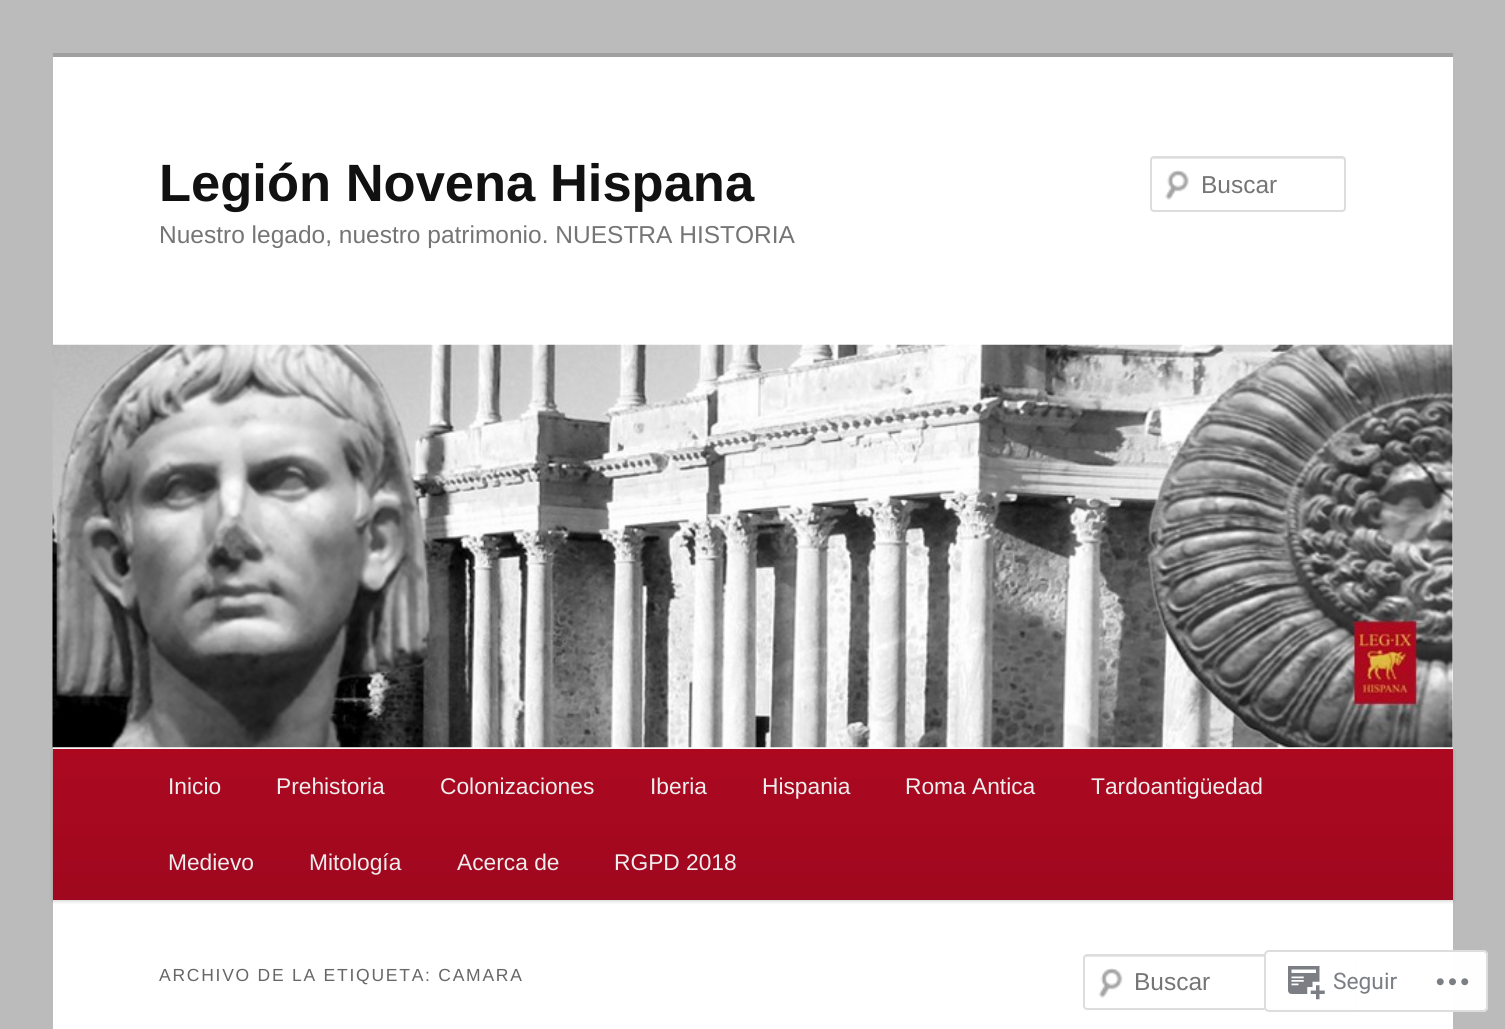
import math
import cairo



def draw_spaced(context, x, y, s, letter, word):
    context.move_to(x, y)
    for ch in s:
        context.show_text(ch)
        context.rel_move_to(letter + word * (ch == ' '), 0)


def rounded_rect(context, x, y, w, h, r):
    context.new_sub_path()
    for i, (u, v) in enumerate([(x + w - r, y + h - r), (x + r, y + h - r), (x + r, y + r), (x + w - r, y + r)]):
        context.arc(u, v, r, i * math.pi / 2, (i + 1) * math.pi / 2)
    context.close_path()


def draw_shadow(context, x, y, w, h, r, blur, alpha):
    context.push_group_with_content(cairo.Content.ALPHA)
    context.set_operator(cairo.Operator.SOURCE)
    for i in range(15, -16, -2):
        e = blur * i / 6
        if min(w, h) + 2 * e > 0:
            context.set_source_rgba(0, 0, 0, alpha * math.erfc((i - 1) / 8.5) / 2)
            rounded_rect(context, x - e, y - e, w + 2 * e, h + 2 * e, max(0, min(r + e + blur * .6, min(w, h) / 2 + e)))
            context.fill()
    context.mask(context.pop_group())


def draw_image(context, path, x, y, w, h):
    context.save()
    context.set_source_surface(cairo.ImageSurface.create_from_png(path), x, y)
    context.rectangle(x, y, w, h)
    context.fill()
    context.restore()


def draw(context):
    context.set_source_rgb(187 / 255, 187 / 255, 187 / 255)
    context.paint()
    context.set_source_rgb(1, 1, 1)
    context.rectangle(53, 57, 1400, 972)
    context.fill()
    context.set_source_rgb(160 / 255, 160 / 255, 160 / 255)
    context.rectangle(53, 53, 1400, 4)
    context.fill()
    draw_image(context, "images/1.png", 1165, 170, 24, 30)
    context.set_source_rgb(230 / 255, 230 / 255, 230 / 255)
    context.new_path()
    context.move_to(1153, 159)
    context.line_to(1342, 159)
    context.line_to(1344, 160)
    context.line_to(1344, 161)
    context.line_to(1344, 160)
    context.curve_to(1344, 159, 1343, 158, 1342, 158)
    context.line_to(1154, 158)
    context.curve_to(1153, 158, 1152, 159, 1152, 160)
    context.line_to(1152, 161)
    context.curve_to(1152, 160, 1152, 159, 1153, 159)
    context.close_path()
    context.fill()
    rounded_rect(context, 1151, 157, 194, 54, 3)
    context.set_source_rgb(221 / 255, 221 / 255, 221 / 255)
    context.stroke()
    context.set_source_rgb(0, 0, 0)
    draw_shadow(context, 53, 751, 1400, 150, 0, 2, 0.2)
    draw_image(context, "images/2.png", 52, 344, 1401, 404)
    gradient = cairo.LinearGradient(753, 749, 753, 900)
    gradient.add_color_stop_rgba(0, 172 / 255, 9 / 255, 33 / 255, 1)
    gradient.add_color_stop_rgba(1, 159 / 255, 8 / 255, 30 / 255, 1)
    context.set_source(gradient)
    context.rectangle(53, 749, 1400, 151)
    context.fill()
    draw_image(context, "images/3.png", 1098, 968, 25, 30)
    context.set_source_rgb(230 / 255, 230 / 255, 230 / 255)
    context.new_path()
    context.move_to(1087, 957)
    context.line_to(1353, 957)
    context.curve_to(1354, 957, 1354, 958, 1354, 959)
    context.line_to(1354, 1008)
    context.curve_to(1355, 1007, 1355, 1007, 1355, 1006)
    context.line_to(1355, 958)
    context.curve_to(1355, 957, 1354, 956, 1353, 956)
    context.line_to(1087, 956)
    context.curve_to(1086, 956, 1085, 957, 1085, 958)
    context.line_to(1085, 959)
    context.curve_to(1085, 958, 1086, 957, 1087, 957)
    context.close_path()
    context.fill()
    rounded_rect(context, 1084, 955, 271, 54, 3)
    context.set_source_rgb(221 / 255, 221 / 255, 221 / 255)
    context.stroke()
    context.set_source_rgba(1, 1, 1, 0.98)
    rounded_rect(context, 1264, 950, 224, 62, 5)
    context.fill()
    rounded_rect(context, 1265, 951, 222, 60, 4)
    context.set_source_rgba(220 / 255, 220 / 255, 222 / 255, 0.98)
    context.stroke()
    draw_image(context, "images/4.png", 1288, 966, 37, 34)
    draw_image(context, "images/5.png", 1436, 978, 33, 8)
    context.select_font_face("Liberation Sans", cairo.FontSlant.NORMAL, cairo.FontWeight.BOLD)
    context.set_font_size(52.5)
    context.set_source_rgb(17 / 255, 17 / 255, 17 / 255)
    context.move_to(159, 201)
    context.show_text("Legión Novena Hispana")
    context.select_font_face("Liberation Sans")
    context.set_font_size(24.5)
    context.set_source_rgb(117 / 255, 117 / 255, 117 / 255)
    context.move_to(159, 243)
    context.show_text("Nuestro legado, nuestro patrimonio. NUESTRA HISTORIA")
    context.move_to(1201, 193)
    context.show_text("Buscar")
    context.set_font_size(22.75)
    context.set_source_rgb(238 / 255, 238 / 255, 238 / 255)
    context.move_to(168, 794)
    context.show_text("Inicio")
    context.move_to(276, 794)
    context.show_text("Prehistoria")
    context.move_to(440, 794)
    context.show_text("Colonizaciones")
    context.move_to(650, 794)
    context.show_text("Iberia")
    context.move_to(762, 794)
    context.show_text("Hispania")
    context.move_to(905, 794)
    context.show_text("Roma Antica")
    context.move_to(1091, 794)
    context.show_text("Tardoantigüedad")
    context.move_to(168, 870)
    context.show_text("Medievo")
    context.move_to(309, 870)
    context.show_text("Mitología")
    context.move_to(457, 870)
    context.show_text("Acerca de")
    context.move_to(614, 870)
    context.show_text("RGPD 2018")
    context.set_font_size(17.5)
    context.set_source_rgb(102 / 255, 102 / 255, 102 / 255)
    draw_spaced(context, 159, 981, "ARCHIVO DE LA ETIQUETA: CAMARA", 1.75, 0)
    context.set_font_size(24.5)
    context.set_source_rgb(117 / 255, 117 / 255, 117 / 255)
    context.move_to(1134, 990)
    context.show_text("Buscar")
    context.select_font_face("Roboto")
    context.set_font_size(22.75)
    context.set_source_rgb(123 / 255, 127 / 255, 132 / 255)
    context.move_to(1333, 989)
    context.show_text("Seguir")


surface = cairo.ImageSurface(cairo.Format.RGB24, 1505, 1029)
context = cairo.Context(surface)
options = cairo.FontOptions()
options.set_hint_metrics(cairo.HintMetrics.OFF)
options.set_hint_style(cairo.HintStyle.NONE)
context.set_font_options(options)
context.set_miter_limit(4)
draw(context)
surface.write_to_png("out.png")
